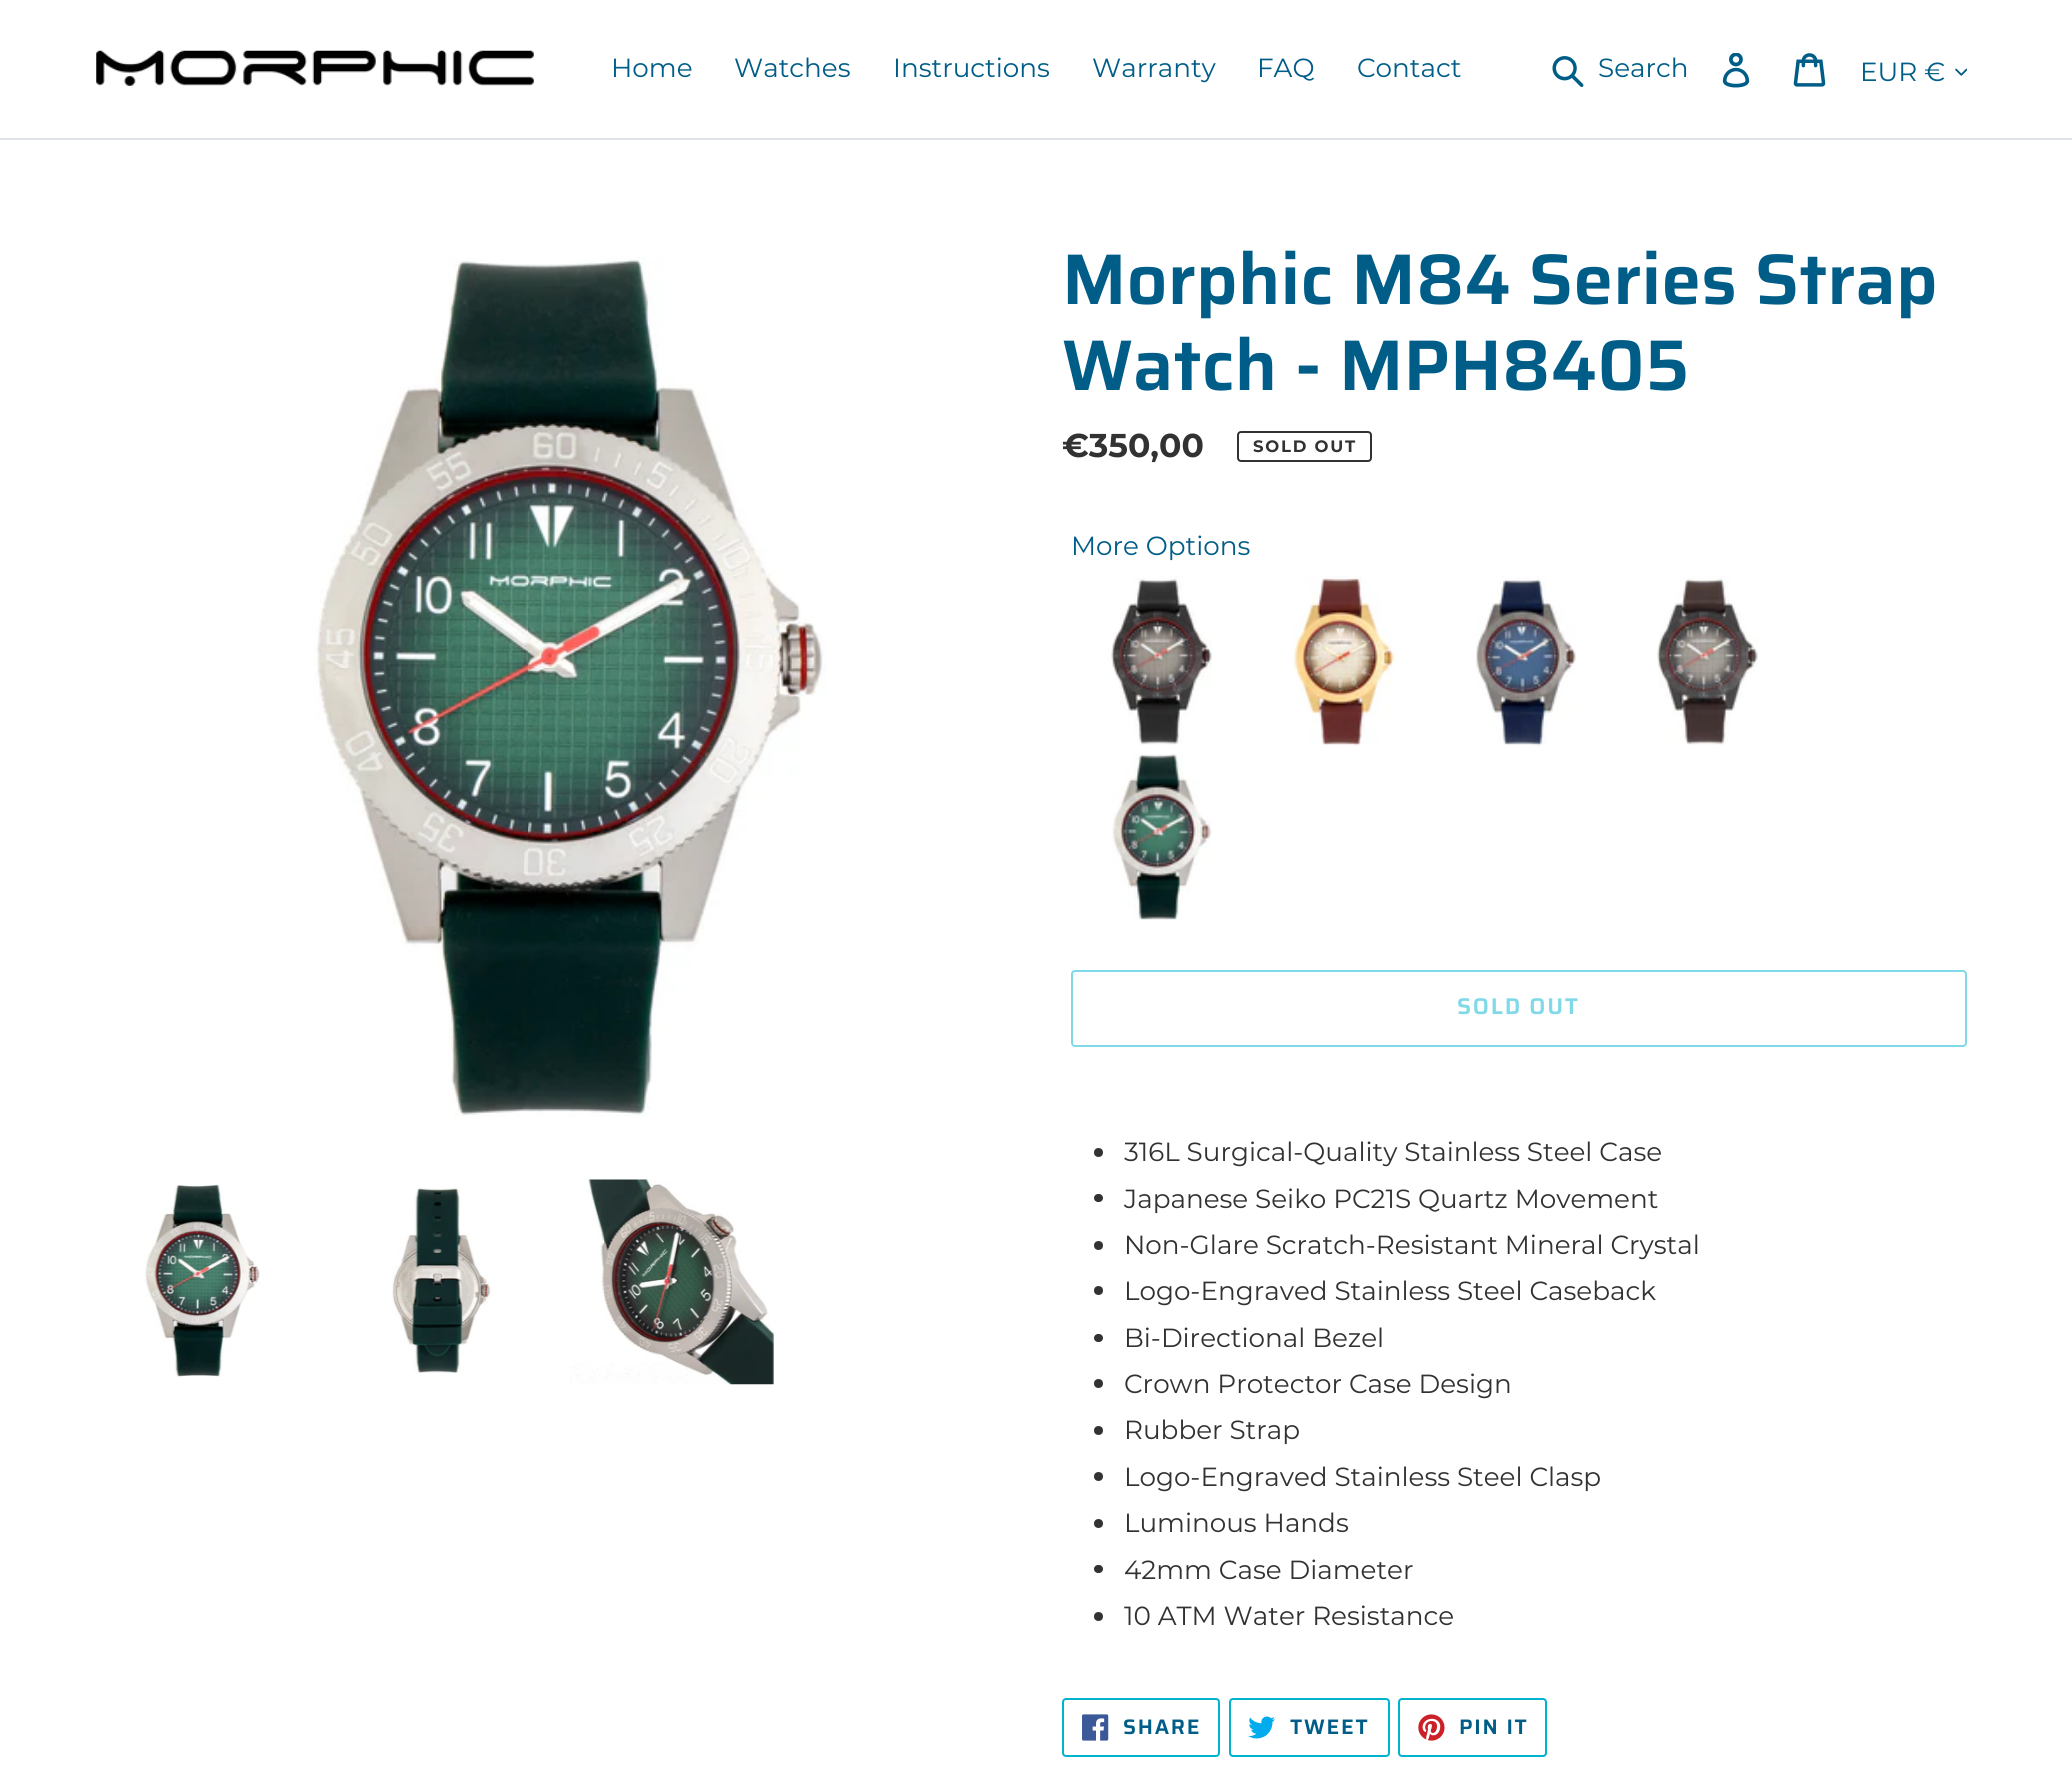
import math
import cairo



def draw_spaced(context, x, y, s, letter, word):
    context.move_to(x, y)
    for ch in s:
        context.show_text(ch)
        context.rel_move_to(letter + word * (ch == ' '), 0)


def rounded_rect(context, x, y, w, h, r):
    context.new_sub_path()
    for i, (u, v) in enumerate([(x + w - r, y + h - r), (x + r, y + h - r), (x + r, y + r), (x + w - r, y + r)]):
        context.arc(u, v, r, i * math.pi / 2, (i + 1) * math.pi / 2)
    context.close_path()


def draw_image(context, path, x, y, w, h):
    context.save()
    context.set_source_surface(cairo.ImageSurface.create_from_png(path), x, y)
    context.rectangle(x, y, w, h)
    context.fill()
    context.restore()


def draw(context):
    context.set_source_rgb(1, 1, 1)
    context.paint()
    context.set_source_rgb(222 / 255, 226 / 255, 230 / 255)
    context.rectangle(0, 138, 2072, 2)
    context.fill()
    draw_image(context, "images/1.png", 96, 50, 438, 36)
    draw_image(context, "images/2.png", 1552, 56, 32, 31)
    draw_image(context, "images/3.png", 1722, 53, 28, 35)
    draw_image(context, "images/4.png", 1793, 53, 33, 34)
    draw_image(context, "images/5.png", 1955, 68, 12, 8)
    draw_image(context, "images/6.png", 314, 257, 513, 860)
    draw_image(context, "images/7.png", 145, 1184, 115, 193)
    draw_image(context, "images/8.png", 392, 1187, 100, 187)
    draw_image(context, "images/9.png", 570, 1179, 204, 206)
    rounded_rect(context, 1238, 432, 133, 29, 3)
    context.set_source_rgb(51 / 255, 50 / 255, 50 / 255)
    context.stroke()
    draw_image(context, "images/10.png", 1108, 576, 104, 169)
    draw_image(context, "images/11.png", 1293, 576, 102, 170)
    draw_image(context, "images/12.png", 1475, 576, 101, 171)
    draw_image(context, "images/13.png", 1657, 576, 101, 169)
    draw_image(context, "images/14.png", 1112, 754, 100, 166)
    rounded_rect(context, 1072, 971, 894, 75, 3)
    context.set_source_rgb(128 / 255, 217 / 255, 231 / 255)
    context.stroke()
    context.set_source_rgb(51 / 255, 50 / 255, 50 / 255)
    context.arc(1098.5, 1152.5, 4.5, 0, 2 * math.pi)
    context.fill()
    rounded_rect(context, 1094, 1194, 9, 8, 4)
    context.fill()
    context.arc(1098.5, 1245.5, 4.5, 0, 2 * math.pi)
    context.fill()
    context.arc(1098.5, 1290.5, 4.5, 0, 2 * math.pi)
    context.fill()
    rounded_rect(context, 1094, 1334, 9, 8, 4)
    context.fill()
    context.arc(1098.5, 1383.5, 4.5, 0, 2 * math.pi)
    context.fill()
    context.arc(1098.5, 1430.5, 4.5, 0, 2 * math.pi)
    context.fill()
    context.arc(1098.5, 1476.5, 4.5, 0, 2 * math.pi)
    context.fill()
    context.arc(1098.5, 1523.5, 4.5, 0, 2 * math.pi)
    context.fill()
    rounded_rect(context, 1094, 1565, 9, 8, 4)
    context.fill()
    context.arc(1098.5, 1616.5, 4.5, 0, 2 * math.pi)
    context.fill()
    rounded_rect(context, 1063, 1699, 156, 57, 3)
    context.set_source_rgb(0, 179 / 255, 207 / 255)
    context.stroke()
    draw_image(context, "images/15.png", 1082, 1714, 27, 27)
    rounded_rect(context, 1230, 1699, 159, 57, 3)
    context.stroke()
    draw_image(context, "images/16.png", 1248, 1716, 27, 23)
    rounded_rect(context, 1399, 1699, 147, 57, 3)
    context.stroke()
    draw_image(context, "images/17.png", 1418, 1714, 27, 27)
    context.select_font_face("Montserrat")
    context.set_font_size(26.25)
    context.set_source_rgb(0, 93 / 255, 135 / 255)
    context.move_to(611, 77)
    context.show_text("Home")
    context.move_to(734, 77)
    context.show_text("Watches")
    context.move_to(893, 77)
    context.show_text("Instructions")
    context.move_to(1092, 77)
    context.show_text("Warranty")
    context.move_to(1257, 77)
    context.show_text("FAQ")
    context.move_to(1357, 77)
    context.show_text("Contact")
    context.move_to(1598, 77)
    context.show_text("Search")
    context.move_to(1860, 81)
    context.show_text("EUR €")
    context.select_font_face("Saira SemiBold")
    context.set_font_size(71.75)
    context.move_to(1062, 304)
    context.show_text("Morphic M84 Series Strap")
    context.move_to(1062, 390)
    context.show_text("Watch - MPH8405")
    context.select_font_face("Montserrat", cairo.FontSlant.NORMAL, cairo.FontWeight.BOLD)
    context.set_font_size(33)
    context.set_source_rgb(51 / 255, 50 / 255, 50 / 255)
    context.move_to(1062, 457)
    context.show_text("€350,00")
    context.set_font_size(16.5)
    draw_spaced(context, 1253, 452, "SOLD OUT", 1.75, 0)
    context.select_font_face("Montserrat")
    context.set_font_size(26.25)
    context.set_source_rgb(0, 93 / 255, 135 / 255)
    context.move_to(1071, 555)
    context.show_text("More Options")
    context.select_font_face("Saira SemiBold")
    context.set_font_size(22.75)
    context.set_source_rgb(128 / 255, 217 / 255, 231 / 255)
    draw_spaced(context, 1457, 1014, "SOLD OUT", 1.75, 0)
    context.select_font_face("Montserrat")
    context.set_font_size(26.25)
    context.set_source_rgb(51 / 255, 50 / 255, 50 / 255)
    context.move_to(1124, 1161)
    context.show_text("316L Surgical-Quality Stainless Steel Case")
    context.move_to(1124, 1208)
    context.show_text("Japanese Seiko PC21S Quartz Movement")
    context.move_to(1124, 1254)
    context.show_text("Non-Glare Scratch-Resistant Mineral Crystal")
    context.move_to(1124, 1300)
    context.show_text("Logo-Engraved Stainless Steel Caseback")
    context.move_to(1124, 1347)
    context.show_text("Bi-Directional Bezel")
    context.move_to(1124, 1393)
    context.show_text("Crown Protector Case Design")
    context.move_to(1124, 1439)
    context.show_text("Rubber Strap")
    context.move_to(1124, 1486)
    context.show_text("Logo-Engraved Stainless Steel Clasp")
    context.move_to(1124, 1532)
    context.show_text("Luminous Hands")
    context.move_to(1124, 1579)
    context.show_text("42mm Case Diameter")
    context.move_to(1124, 1625)
    context.show_text("10 ATM Water Resistance")
    context.select_font_face("Saira SemiBold")
    context.set_font_size(21)
    context.set_source_rgb(0, 93 / 255, 135 / 255)
    draw_spaced(context, 1123, 1734, "SHARE", 1.75, 0)
    draw_spaced(context, 1290, 1734, "TWEET", 1.75, 0)
    draw_spaced(context, 1459, 1734, "PIN IT", 1.75, 0)


surface = cairo.ImageSurface(cairo.Format.RGB24, 2072, 1775)
context = cairo.Context(surface)
options = cairo.FontOptions()
options.set_hint_metrics(cairo.HintMetrics.OFF)
options.set_hint_style(cairo.HintStyle.NONE)
context.set_font_options(options)
context.set_miter_limit(4)
draw(context)
surface.write_to_png("out.png")
